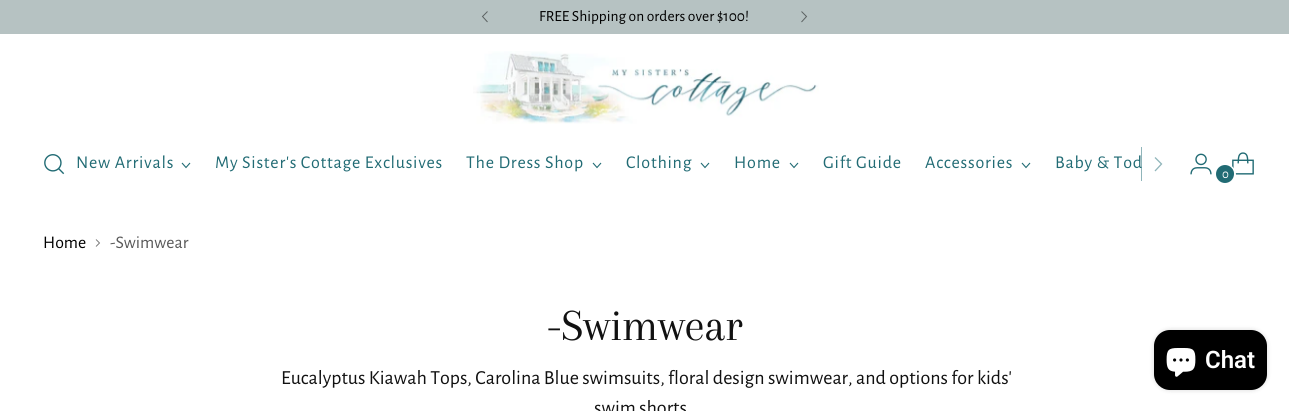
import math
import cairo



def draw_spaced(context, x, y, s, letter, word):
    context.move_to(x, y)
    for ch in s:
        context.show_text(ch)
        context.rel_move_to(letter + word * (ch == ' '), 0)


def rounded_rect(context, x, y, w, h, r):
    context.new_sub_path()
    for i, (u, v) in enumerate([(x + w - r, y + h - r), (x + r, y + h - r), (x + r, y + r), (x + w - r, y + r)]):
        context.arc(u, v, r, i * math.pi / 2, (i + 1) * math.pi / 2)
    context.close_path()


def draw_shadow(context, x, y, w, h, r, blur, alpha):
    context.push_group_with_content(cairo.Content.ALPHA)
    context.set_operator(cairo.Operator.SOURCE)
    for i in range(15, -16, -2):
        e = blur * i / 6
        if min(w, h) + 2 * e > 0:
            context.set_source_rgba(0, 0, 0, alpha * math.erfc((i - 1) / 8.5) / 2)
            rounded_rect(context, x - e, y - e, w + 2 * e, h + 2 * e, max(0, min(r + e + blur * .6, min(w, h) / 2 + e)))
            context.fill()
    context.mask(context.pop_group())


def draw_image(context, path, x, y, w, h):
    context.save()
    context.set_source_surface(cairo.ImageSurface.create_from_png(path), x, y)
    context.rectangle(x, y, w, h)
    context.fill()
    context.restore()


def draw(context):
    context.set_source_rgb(1, 1, 1)
    context.paint()
    context.set_source_rgb(182 / 255, 194 / 255, 194 / 255)
    context.rectangle(0, 0, 1289, 34)
    context.fill()
    context.new_path()
    context.move_to(487.5, 11.5)
    context.line_to(482.5, 16.5)
    context.line_to(487.5, 22)
    context.set_source_rgb(91 / 255, 97 / 255, 97 / 255)
    context.set_line_width(1)
    context.stroke()
    context.new_path()
    context.move_to(801.5, 22)
    context.line_to(806.5, 16.5)
    context.line_to(801.5, 11.5)
    context.stroke()
    draw_image(context, "images/1.png", 473, 51, 346, 73)
    draw_image(context, "images/2.png", 44, 154, 21, 21)
    context.new_path()
    context.move_to(182, 163)
    context.line_to(186, 167.5)
    context.line_to(190, 163)
    context.set_source_rgb(33 / 255, 107 / 255, 116 / 255)
    context.set_line_width(1.1)
    context.stroke()
    context.new_path()
    context.move_to(593, 163)
    context.line_to(597, 167.5)
    context.line_to(601, 163)
    context.stroke()
    context.new_path()
    context.move_to(701, 163)
    context.line_to(705, 167.5)
    context.line_to(709, 163)
    context.stroke()
    context.new_path()
    context.move_to(790, 163)
    context.line_to(794, 167.5)
    context.line_to(798, 163)
    context.stroke()
    context.new_path()
    context.move_to(1022, 163)
    context.line_to(1026, 167.5)
    context.line_to(1030, 163)
    context.stroke()
    context.set_source_rgb(144 / 255, 181 / 255, 186 / 255)
    context.rectangle(1141, 147, 1, 34)
    context.fill()
    context.new_path()
    context.move_to(1155, 171)
    context.line_to(1161.5, 164)
    context.line_to(1155, 157.5)
    context.set_line_width(1.3)
    context.stroke()
    draw_image(context, "images/3.png", 1190, 153, 22, 22)
    draw_image(context, "images/4.png", 1232, 152, 22, 23)
    context.arc(1225.5, 174.5, 9.5, 0, 2 * math.pi)
    context.set_source_rgb(1, 1, 1)
    context.set_line_width(2)
    context.stroke()
    context.set_source_rgb(33 / 255, 107 / 255, 116 / 255)
    context.arc(1225, 174, 9, 0, 2 * math.pi)
    context.fill()
    context.new_path()
    context.move_to(96, 246.5)
    context.line_to(99.5, 243)
    context.line_to(96, 239.5)
    context.set_source_rgb(112 / 255, 112 / 255, 112 / 255)
    context.set_line_width(0.9)
    context.stroke()
    context.set_source_rgb(0, 0, 0)
    draw_shadow(context, 1154, 330, 113, 60, 16, 2.5, 0.15)
    context.set_source_rgb(0, 0, 0)
    rounded_rect(context, 1154, 330, 113, 60, 16)
    context.fill()
    draw_image(context, "images/5.png", 1166, 348, 30, 29)
    context.select_font_face("Alegreya Sans")
    context.set_font_size(15.5)
    context.move_to(539, 21)
    context.show_text("FREE Shipping on orders over $100!")
    context.set_font_size(18)
    context.set_source_rgb(33 / 255, 107 / 255, 116 / 255)
    draw_spaced(context, 76, 168, "New Arrivals", 0.75, 0)
    draw_spaced(context, 215, 168, "My Sister's Cottage Exclusives", 0.75, 0)
    draw_spaced(context, 466, 168, "The Dress Shop", 0.75, 0)
    draw_spaced(context, 626, 168, "Clothing", 0.75, 0)
    draw_spaced(context, 734, 168, "Home", 0.75, 0)
    draw_spaced(context, 823, 168, "Gift Guide", 0.75, 0)
    draw_spaced(context, 925, 168, "Accessories", 0.75, 0)
    draw_spaced(context, 1055, 168, "Baby & Tod", 0.75, 0)
    context.set_font_size(13)
    context.set_source_rgb(1, 1, 1)
    context.move_to(1222, 178)
    context.show_text("0")
    context.set_font_size(17.75)
    context.set_source_rgb(0, 0, 0)
    context.move_to(43, 248)
    context.show_text("Home")
    context.set_source_rgb(88 / 255, 88 / 255, 88 / 255)
    context.move_to(110, 248)
    context.show_text("-Swimwear")
    context.select_font_face("Arapey")
    context.set_font_size(46)
    context.set_source_rgb(17 / 255, 17 / 255, 17 / 255)
    draw_spaced(context, 547, 340, "-Swimwear", -0.5, 0)
    context.select_font_face("Alegreya Sans")
    context.set_font_size(20)
    context.move_to(281, 384)
    context.show_text("Eucalyptus Kiawah Tops, Carolina Blue swimsuits, floral design swimwear, and options for kids'")
    context.move_to(594, 414)
    context.show_text("swim shorts")
    context.select_font_face("Roboto SemiBold")
    context.set_font_size(24)
    context.set_source_rgb(1, 1, 1)
    context.move_to(1205, 368)
    context.show_text("Chat")


surface = cairo.ImageSurface(cairo.Format.RGB24, 1289, 411)
context = cairo.Context(surface)
options = cairo.FontOptions()
options.set_hint_metrics(cairo.HintMetrics.OFF)
options.set_hint_style(cairo.HintStyle.NONE)
context.set_font_options(options)
context.set_miter_limit(4)
draw(context)
surface.write_to_png("out.png")
